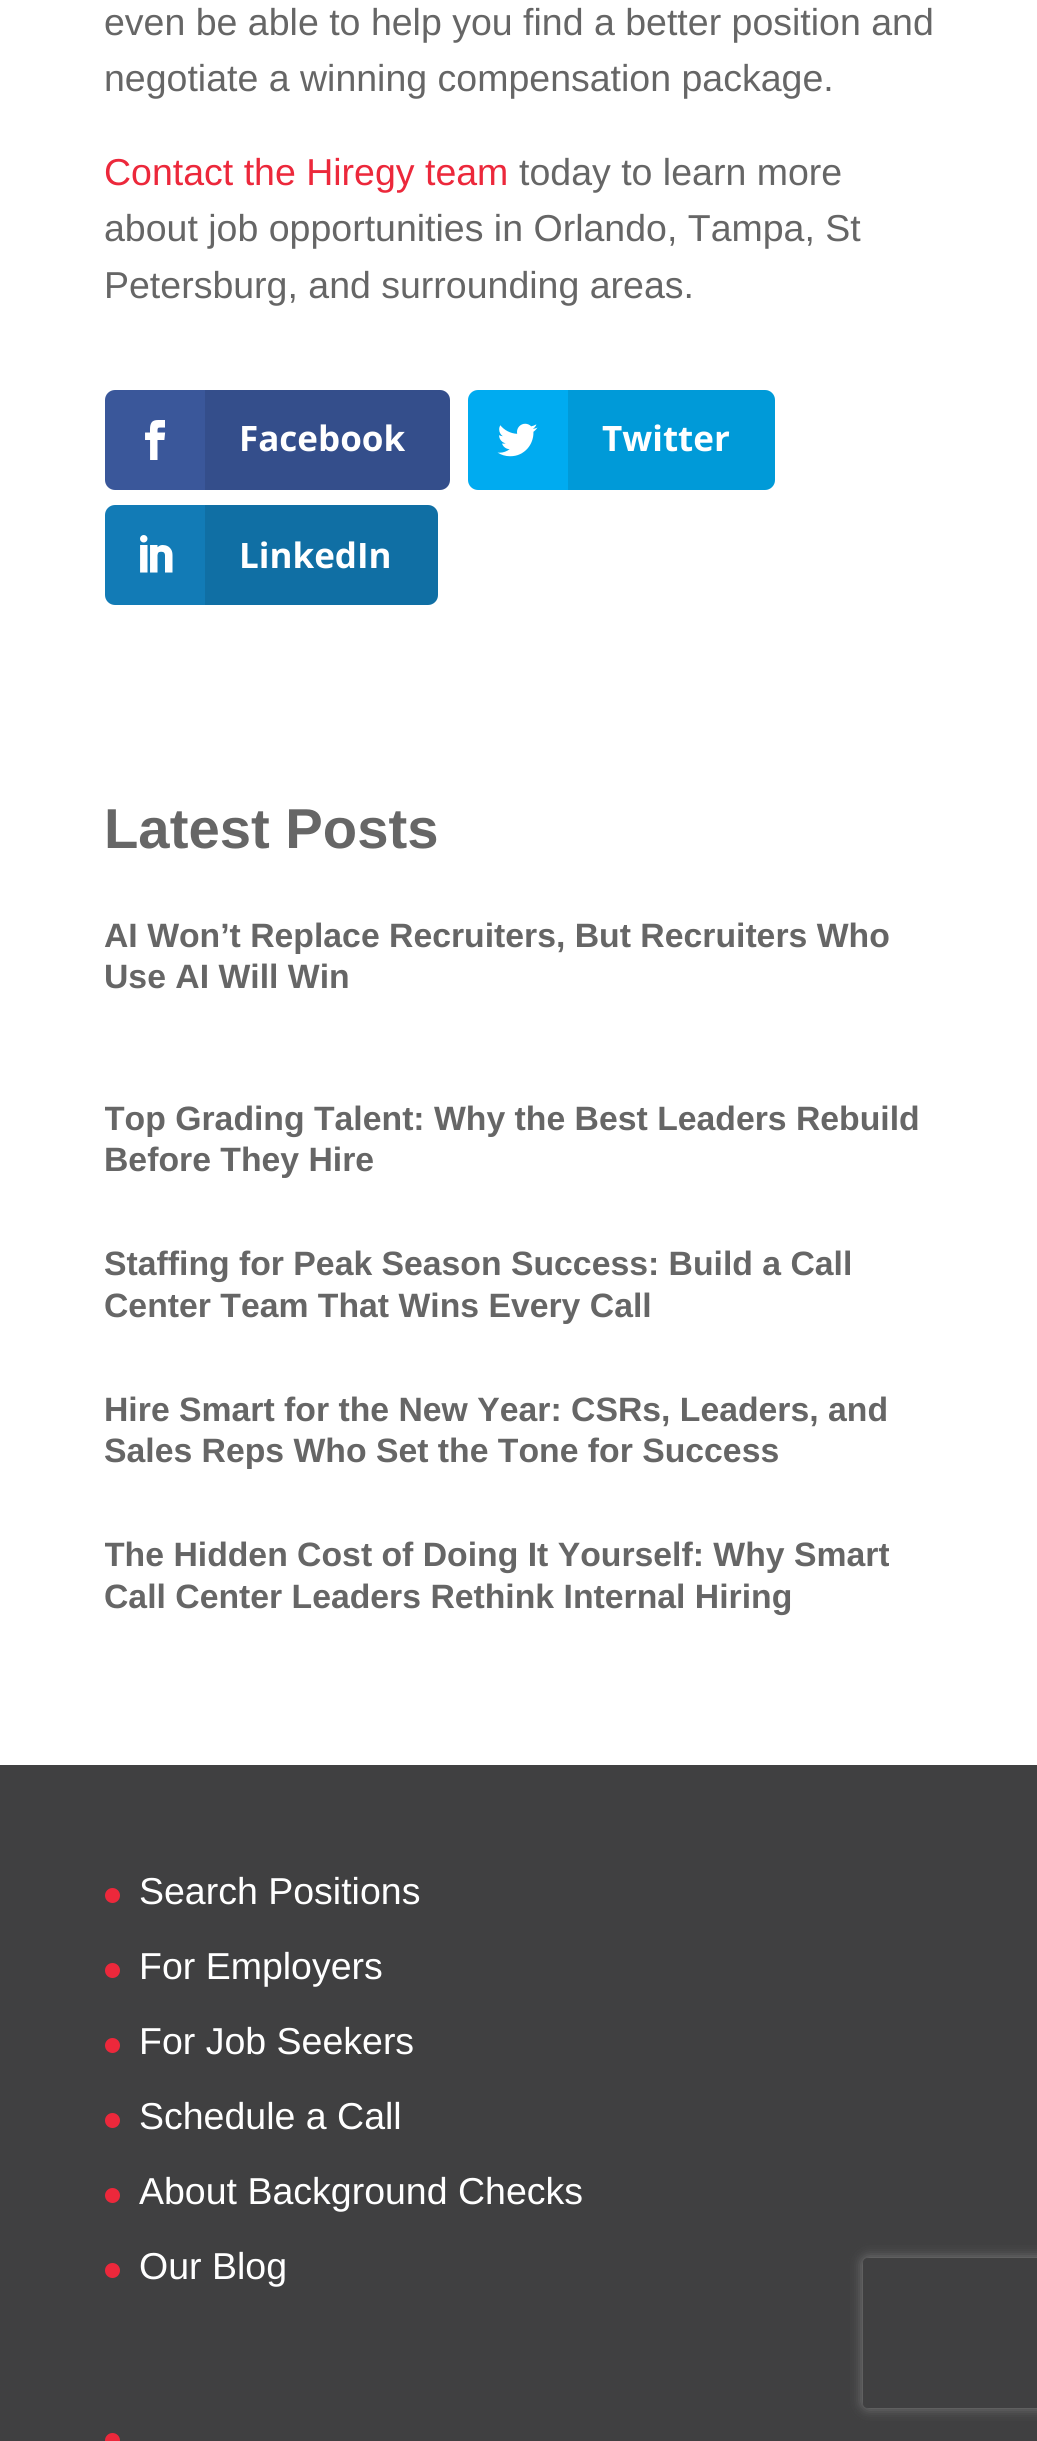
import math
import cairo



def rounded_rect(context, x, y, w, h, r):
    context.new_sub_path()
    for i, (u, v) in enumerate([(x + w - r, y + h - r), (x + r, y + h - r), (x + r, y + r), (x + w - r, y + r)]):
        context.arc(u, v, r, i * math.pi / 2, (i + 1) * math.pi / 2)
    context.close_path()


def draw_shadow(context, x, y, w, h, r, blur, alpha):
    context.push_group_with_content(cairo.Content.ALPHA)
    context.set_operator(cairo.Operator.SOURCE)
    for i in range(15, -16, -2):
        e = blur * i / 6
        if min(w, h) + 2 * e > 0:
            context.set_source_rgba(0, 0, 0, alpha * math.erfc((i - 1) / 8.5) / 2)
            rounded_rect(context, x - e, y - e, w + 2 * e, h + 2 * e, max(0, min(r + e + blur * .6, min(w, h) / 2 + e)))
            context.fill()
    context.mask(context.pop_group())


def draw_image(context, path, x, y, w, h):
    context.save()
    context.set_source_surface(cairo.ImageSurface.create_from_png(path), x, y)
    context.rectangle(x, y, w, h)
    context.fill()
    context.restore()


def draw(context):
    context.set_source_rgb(1, 1, 1)
    context.paint()
    context.set_source_rgb(58 / 255, 87 / 255, 154 / 255)
    rounded_rect(context, 105, 390, 345, 100, 10)
    context.fill()
    draw_image(context, "images/1.png", 145, 420, 21, 40)
    context.set_source_rgba(0, 0, 0, 0.1)
    context.new_path()
    context.move_to(205, 390)
    context.line_to(440, 390)
    context.curve_to(445.5, 390, 450, 394.5, 450, 400)
    context.line_to(450, 480)
    context.curve_to(450, 485.5, 445.5, 490, 440, 490)
    context.line_to(205, 490)
    context.close_path()
    context.fill()
    context.set_source_rgb(0, 171 / 255, 240 / 255)
    rounded_rect(context, 468, 390, 307, 100, 10)
    context.fill()
    draw_image(context, "images/2.png", 497, 423, 41, 34)
    context.set_source_rgba(0, 0, 0, 0.1)
    context.new_path()
    context.move_to(568, 390)
    context.line_to(765, 390)
    context.curve_to(770.5, 390, 775, 394.5, 775, 400)
    context.line_to(775, 480)
    context.curve_to(775, 485.5, 770.5, 490, 765, 490)
    context.line_to(568, 490)
    context.close_path()
    context.fill()
    context.set_source_rgb(18 / 255, 123 / 255, 182 / 255)
    rounded_rect(context, 105, 505, 333, 100, 10)
    context.fill()
    draw_image(context, "images/3.png", 140, 535, 33, 38)
    context.set_source_rgba(0, 0, 0, 0.1)
    context.new_path()
    context.move_to(205, 505)
    context.line_to(428, 505)
    context.curve_to(433.5, 505, 438, 509.5, 438, 515)
    context.line_to(438, 595)
    context.curve_to(438, 600.5, 433.5, 605, 428, 605)
    context.line_to(205, 605)
    context.close_path()
    context.fill()
    context.set_source_rgb(64 / 255, 64 / 255, 65 / 255)
    context.rectangle(0, 1765, 1037, 676)
    context.fill()
    context.set_source_rgb(236 / 255, 40 / 255, 59 / 255)
    context.arc(112.5, 1895.5, 7.5, 0, 2 * math.pi)
    context.fill()
    context.arc(112.5, 1970.5, 7.5, 0, 2 * math.pi)
    context.fill()
    context.arc(112.5, 2045.5, 7.5, 0, 2 * math.pi)
    context.fill()
    context.arc(112.5, 2120.5, 7.5, 0, 2 * math.pi)
    context.fill()
    context.arc(112.5, 2195.5, 7.5, 0, 2 * math.pi)
    context.fill()
    context.arc(112.5, 2270.5, 7.5, 0, 2 * math.pi)
    context.fill()
    context.arc(112.5, 2440.5, 7.5, 0, 2 * math.pi)
    context.fill()
    context.save()
    context.set_fill_rule(cairo.FillRule.EVEN_ODD)
    context.new_path()
    context.move_to(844, 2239)
    context.line_to(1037, 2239)
    context.line_to(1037, 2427)
    context.line_to(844, 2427)
    context.close_path()
    context.move_to(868, 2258)
    context.line_to(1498, 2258)
    context.curve_to(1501, 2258, 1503, 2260, 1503, 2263)
    context.line_to(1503, 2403)
    context.curve_to(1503, 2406, 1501, 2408, 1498, 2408)
    context.line_to(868, 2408)
    context.curve_to(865, 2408, 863, 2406, 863, 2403)
    context.line_to(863, 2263)
    context.curve_to(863, 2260, 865, 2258, 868, 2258)
    context.close_path()
    context.clip()
    context.set_source_rgb(128 / 255, 128 / 255, 128 / 255)
    draw_shadow(context, 863, 2258, 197, 150, 5, 6, 1)
    context.restore()
    context.select_font_face("Liberation Sans")
    context.set_font_size(37.5)
    context.set_source_rgb(102 / 255, 102 / 255, 102 / 255)
    context.move_to(104, 35)
    context.show_text("even be able to help you find a better position and")
    context.move_to(104, 91)
    context.show_text("negotiate a winning compensation package.")
    context.set_source_rgb(236 / 255, 40 / 255, 59 / 255)
    context.move_to(104, 185)
    context.show_text("Contact the Hiregy team")
    context.set_source_rgb(102 / 255, 102 / 255, 102 / 255)
    context.move_to(519, 185)
    context.show_text("today to learn more")
    context.move_to(104, 241)
    context.show_text("about job opportunities in Orlando, Tampa, St")
    context.move_to(104, 298)
    context.show_text("Petersburg, and surrounding areas.")
    context.select_font_face("Open Sans", cairo.FontSlant.NORMAL, cairo.FontWeight.BOLD)
    context.set_font_size(35)
    context.set_source_rgb(1, 1, 1)
    context.move_to(239, 451)
    context.show_text("Facebook")
    context.move_to(602, 451)
    context.show_text("Twitter")
    context.move_to(239, 568)
    context.show_text("LinkedIn")
    context.select_font_face("Liberation Sans", cairo.FontSlant.NORMAL, cairo.FontWeight.BOLD)
    context.set_font_size(56.25)
    context.set_source_rgb(102 / 255, 102 / 255, 102 / 255)
    context.move_to(104, 848)
    context.show_text("Latest Posts")
    context.set_font_size(33.75)
    context.move_to(104, 947)
    context.show_text("AI Won’t Replace Recruiters, But Recruiters Who")
    context.move_to(104, 988)
    context.show_text("Use AI Will Win")
    context.save()
    context.rectangle(105, 1100, 830, 83)
    context.clip()
    context.move_to(104, 1130)
    context.show_text("Top Grading Talent: Why the Best Leaders Rebuild")
    context.restore()
    context.move_to(104, 1171)
    context.show_text("Before They Hire")
    context.move_to(104, 1275)
    context.show_text("Staffing for Peak Season Success: Build a Call")
    context.move_to(104, 1317)
    context.show_text("Center Team That Wins Every Call")
    context.move_to(104, 1421)
    context.show_text("Hire Smart for the New Year: CSRs, Leaders, and")
    context.move_to(104, 1462)
    context.show_text("Sales Reps Who Set the Tone for Success")
    context.save()
    context.rectangle(105, 1538, 830, 82)
    context.clip()
    context.move_to(104, 1566)
    context.show_text("The Hidden Cost of Doing It Yourself: Why Smart")
    context.restore()
    context.move_to(104, 1608)
    context.show_text("Call Center Leaders Rethink Internal Hiring")
    context.select_font_face("Liberation Sans")
    context.set_font_size(37.5)
    context.set_source_rgb(1, 1, 1)
    context.move_to(139, 1904)
    context.show_text("Search Positions")
    context.move_to(139, 1979)
    context.show_text("For Employers")
    context.move_to(139, 2054)
    context.show_text("For Job Seekers")
    context.move_to(139, 2129)
    context.show_text("Schedule a Call")
    context.move_to(139, 2204)
    context.show_text("About Background Checks")
    context.move_to(139, 2279)
    context.show_text("Our Blog")


surface = cairo.ImageSurface(cairo.Format.RGB24, 1037, 2441)
context = cairo.Context(surface)
options = cairo.FontOptions()
options.set_hint_metrics(cairo.HintMetrics.OFF)
options.set_hint_style(cairo.HintStyle.NONE)
context.set_font_options(options)
context.set_miter_limit(4)
draw(context)
surface.write_to_png("out.png")
